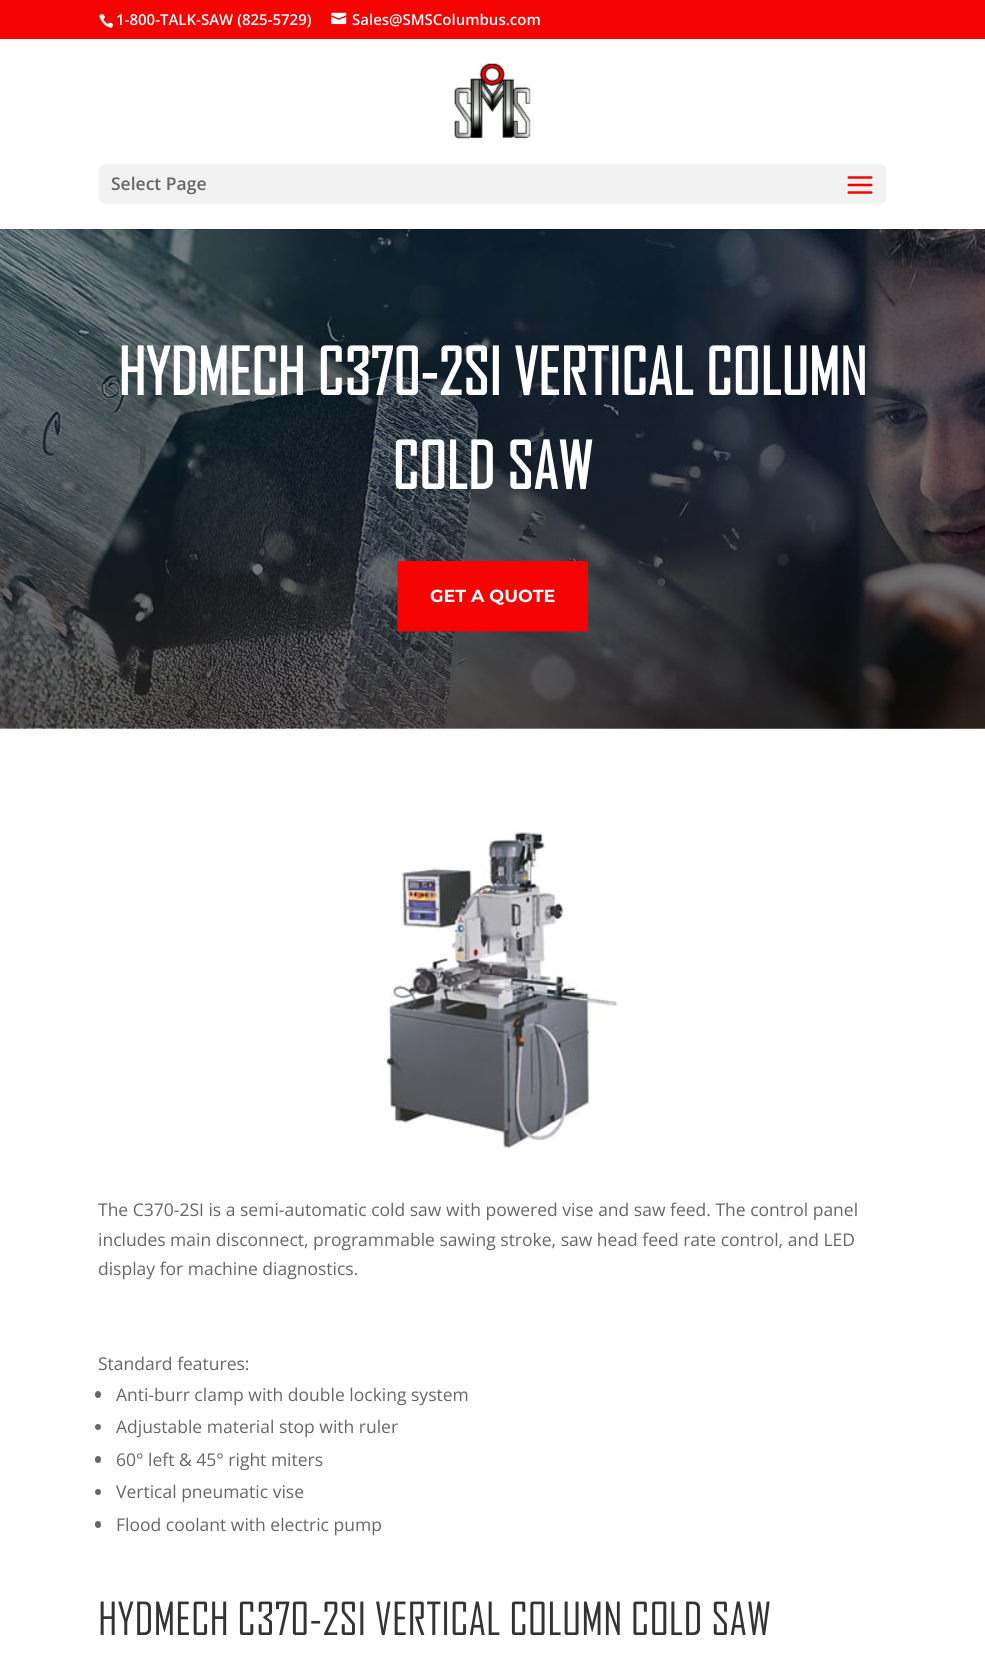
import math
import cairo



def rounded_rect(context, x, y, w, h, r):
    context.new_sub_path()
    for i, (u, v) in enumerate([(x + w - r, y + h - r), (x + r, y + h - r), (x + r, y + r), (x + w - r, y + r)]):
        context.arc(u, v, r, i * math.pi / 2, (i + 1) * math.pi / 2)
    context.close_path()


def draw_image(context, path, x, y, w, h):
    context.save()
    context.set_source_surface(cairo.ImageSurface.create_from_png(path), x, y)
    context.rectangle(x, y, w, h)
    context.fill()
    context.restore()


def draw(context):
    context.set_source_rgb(1, 1, 1)
    context.paint()
    context.set_source_rgb(245 / 255, 2 / 255, 2 / 255)
    context.rectangle(0, 0, 985, 39)
    context.fill()
    draw_image(context, "images/1.png", 99, 14, 15, 14)
    draw_image(context, "images/2.png", 331, 12, 16, 13)
    draw_image(context, "images/5.png", 0, 229, 985, 500)
    context.set_source_rgba(0, 0, 0, 0.1)
    context.rectangle(0, 229, 985, 1)
    context.fill()
    draw_image(context, "images/3.png", 454, 63, 77, 76)
    context.set_source_rgb(242 / 255, 242 / 255, 242 / 255)
    rounded_rect(context, 99, 164, 787, 40, 6)
    context.fill()
    draw_image(context, "images/4.png", 847, 176, 26, 18)
    context.set_source_rgb(245 / 255, 2 / 255, 2 / 255)
    rounded_rect(context, 398, 561, 190, 70, 2.5)
    context.fill()
    context.new_path()
    context.move_to(405, 569)
    context.line_to(580, 569)
    context.line_to(580, 624)
    context.line_to(405, 624)
    context.close_path()
    context.set_line_width(15)
    context.stroke()
    draw_image(context, "images/6.png", 381, 829, 237, 320)
    context.set_source_rgb(102 / 255, 102 / 255, 102 / 255)
    rounded_rect(context, 95, 1391, 6, 7, 3)
    context.fill()
    context.arc(98, 1427, 3, 0, 2 * math.pi)
    context.fill()
    rounded_rect(context, 95, 1456, 6, 7, 3)
    context.fill()
    context.arc(98, 1492, 3, 0, 2 * math.pi)
    context.fill()
    rounded_rect(context, 95, 1521, 6, 7, 3)
    context.fill()
    context.select_font_face("Open Sans SemiBold")
    context.set_font_size(15)
    context.set_source_rgb(1, 1, 1)
    context.move_to(116, 25)
    context.show_text("1-800-TALK-SAW (825-5729)")
    context.move_to(352, 25)
    context.show_text("Sales@SMSColumbus.com")
    context.set_font_size(17.5)
    context.set_source_rgb(102 / 255, 102 / 255, 102 / 255)
    context.move_to(111, 190)
    context.show_text("Select Page")
    context.select_font_face("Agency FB", cairo.FontSlant.NORMAL, cairo.FontWeight.BOLD)
    context.set_font_size(62.5)
    context.set_source_rgb(1, 1, 1)
    context.move_to(118, 395)
    context.show_text("HYDMECH C370-2SI VERTICAL COLUMN")
    context.move_to(392, 489)
    context.show_text("COLD SAW")
    context.select_font_face("Montserrat", cairo.FontSlant.NORMAL, cairo.FontWeight.BOLD)
    context.set_font_size(17.5)
    context.move_to(430, 602)
    context.show_text("GET A QUOTE")
    context.select_font_face("Open Sans")
    context.set_source_rgb(102 / 255, 102 / 255, 102 / 255)
    context.move_to(98, 1216)
    context.show_text("The C370-2SI is a semi-automatic cold saw with powered vise and saw feed. The control panel")
    context.move_to(98, 1246)
    context.show_text("includes main disconnect, programmable sawing stroke, saw head feed rate control, and LED")
    context.move_to(98, 1275)
    context.show_text("display for machine diagnostics.")
    context.move_to(98, 1370)
    context.show_text("Standard features:")
    context.move_to(116, 1401)
    context.show_text("Anti-burr clamp with double locking system")
    context.move_to(116, 1433)
    context.show_text("Adjustable material stop with ruler")
    context.move_to(116, 1466)
    context.show_text("60° left & 45° right miters")
    context.move_to(116, 1498)
    context.show_text("Vertical pneumatic vise")
    context.move_to(116, 1531)
    context.show_text("Flood coolant with electric pump")
    context.select_font_face("Agency FB")
    context.set_font_size(43.75)
    context.set_source_rgb(51 / 255, 51 / 255, 51 / 255)
    context.move_to(98, 1635)
    context.show_text("HYDMECH C370-2SI VERTICAL COLUMN COLD SAW")


surface = cairo.ImageSurface(cairo.Format.RGB24, 985, 1667)
context = cairo.Context(surface)
options = cairo.FontOptions()
options.set_hint_metrics(cairo.HintMetrics.OFF)
options.set_hint_style(cairo.HintStyle.NONE)
context.set_font_options(options)
context.set_miter_limit(4)
draw(context)
surface.write_to_png("out.png")
